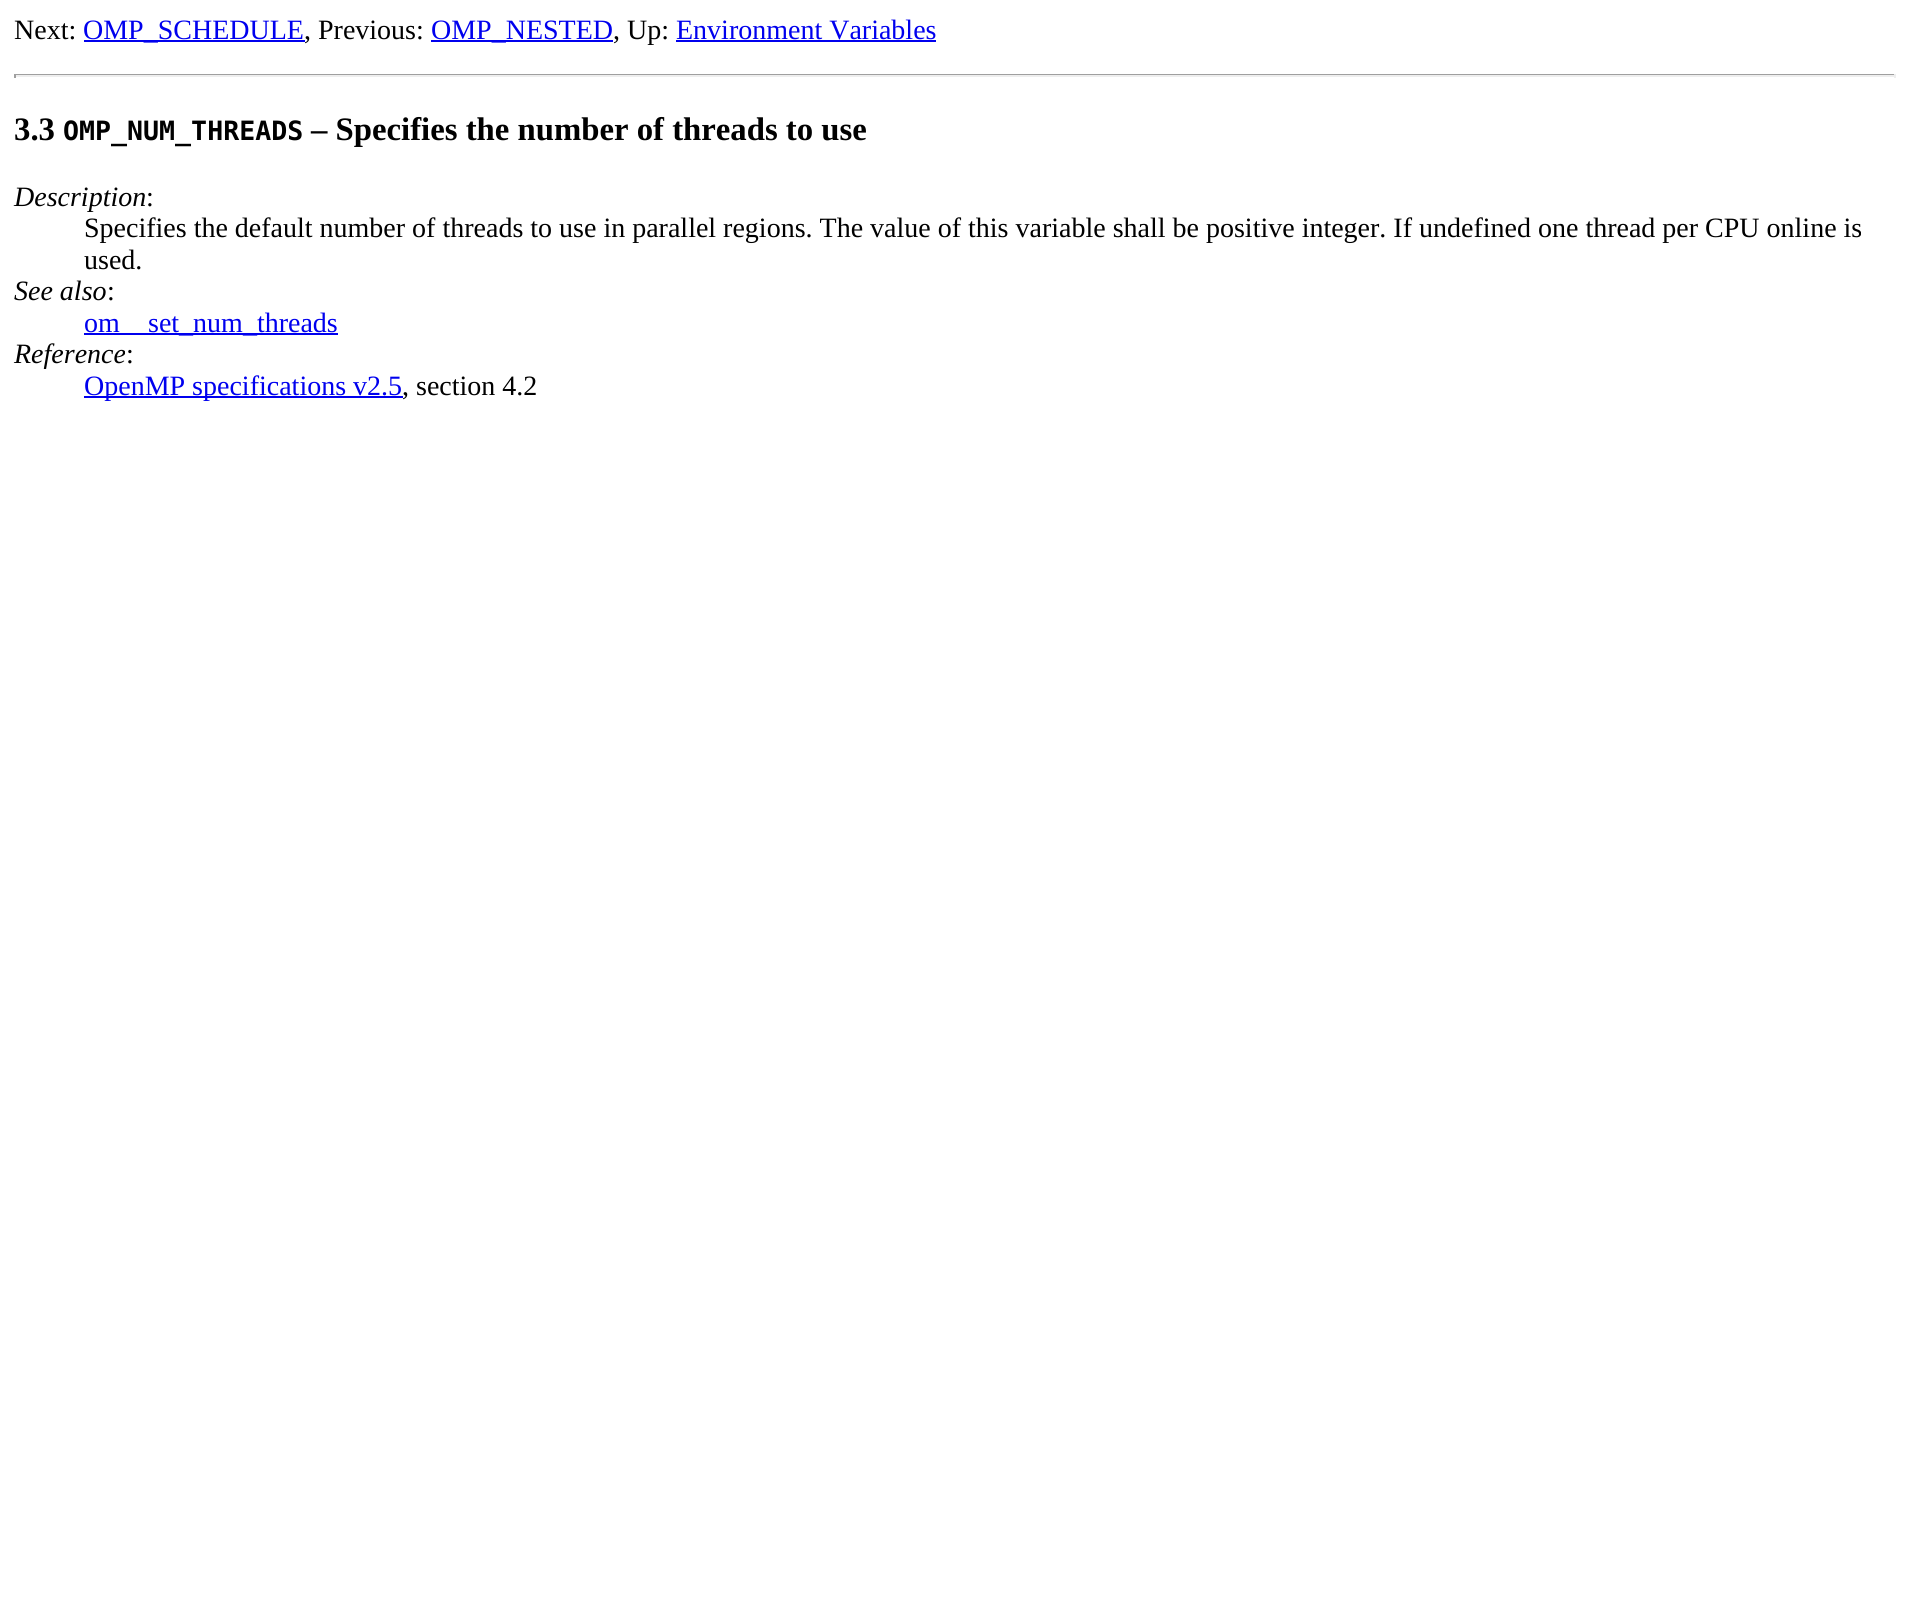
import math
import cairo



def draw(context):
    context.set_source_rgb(1, 1, 1)
    context.paint()
    context.set_source_rgb(0, 0, 238 / 255)
    context.rectangle(84, 40, 221, 2)
    context.fill()
    context.rectangle(431, 40, 182, 2)
    context.fill()
    context.rectangle(676, 40, 260, 2)
    context.fill()
    context.set_source_rgb(159 / 255, 159 / 255, 159 / 255)
    context.rectangle(14, 74, 1881, 1)
    context.fill()
    context.set_source_rgb(238 / 255, 238 / 255, 238 / 255)
    context.rectangle(1894, 74, 2, 4)
    context.fill()
    context.rectangle(14, 75, 1881, 2)
    context.fill()
    context.set_source_rgb(159 / 255, 159 / 255, 159 / 255)
    context.rectangle(14, 74, 2, 4)
    context.fill()
    context.set_source_rgb(0, 0, 238 / 255)
    context.rectangle(84, 333, 254, 2)
    context.fill()
    context.rectangle(84, 396, 319, 2)
    context.fill()
    context.select_font_face("Liberation Serif")
    context.set_font_size(28)
    context.set_source_rgb(0, 0, 0)
    context.move_to(14, 39)
    context.show_text("Next:")
    context.set_source_rgb(0, 0, 238 / 255)
    context.move_to(83, 39)
    context.show_text("OMP_SCHEDULE")
    context.set_source_rgb(0, 0, 0)
    context.move_to(304, 39)
    context.show_text(", Previous:")
    context.set_source_rgb(0, 0, 238 / 255)
    context.move_to(431, 39)
    context.show_text("OMP_NESTED")
    context.set_source_rgb(0, 0, 0)
    context.move_to(613, 39)
    context.show_text(", Up:")
    context.set_source_rgb(0, 0, 238 / 255)
    context.move_to(676, 39)
    context.show_text("Environment Variables")
    context.select_font_face("Liberation Serif", cairo.FontSlant.NORMAL, cairo.FontWeight.BOLD)
    context.set_font_size(32.75)
    context.set_source_rgb(0, 0, 0)
    context.move_to(14, 140)
    context.show_text("3.3")
    context.select_font_face("DejaVu Sans Mono", cairo.FontSlant.NORMAL, cairo.FontWeight.BOLD)
    context.set_font_size(26.6)
    context.move_to(63, 140)
    context.show_text("OMP_NUM_THREADS")
    context.select_font_face("Liberation Serif", cairo.FontSlant.NORMAL, cairo.FontWeight.BOLD)
    context.set_font_size(32.75)
    context.move_to(311, 140)
    context.show_text("– Specifies the number of threads to use")
    context.select_font_face("Liberation Serif", cairo.FontSlant.ITALIC)
    context.set_font_size(28)
    context.move_to(14, 206)
    context.show_text("Description")
    context.select_font_face("Liberation Serif")
    context.move_to(146, 206)
    context.show_text(":")
    context.move_to(84, 237)
    context.show_text("Specifies the default number of threads to use in parallel regions. The value of this variable shall be positive integer. If undefined one thread per CPU online is")
    context.move_to(84, 269)
    context.show_text("used.")
    context.select_font_face("Liberation Serif", cairo.FontSlant.ITALIC)
    context.move_to(14, 300)
    context.show_text("See also")
    context.select_font_face("Liberation Serif")
    context.move_to(107, 300)
    context.show_text(":")
    context.set_source_rgb(0, 0, 238 / 255)
    context.move_to(84, 332)
    context.show_text("om")
    context.move_to(148, 332)
    context.show_text("set_num_threads")
    context.select_font_face("Liberation Serif", cairo.FontSlant.ITALIC)
    context.set_source_rgb(0, 0, 0)
    context.move_to(14, 363)
    context.show_text("Reference")
    context.select_font_face("Liberation Serif")
    context.move_to(126, 363)
    context.show_text(":")
    context.set_source_rgb(0, 0, 238 / 255)
    context.move_to(84, 395)
    context.show_text("OpenMP specifications v2.5")
    context.set_source_rgb(0, 0, 0)
    context.move_to(402, 395)
    context.show_text(", section 4.2")


surface = cairo.ImageSurface(cairo.Format.RGB24, 1908, 1606)
context = cairo.Context(surface)
options = cairo.FontOptions()
options.set_hint_metrics(cairo.HintMetrics.OFF)
options.set_hint_style(cairo.HintStyle.NONE)
context.set_font_options(options)
context.set_miter_limit(4)
draw(context)
surface.write_to_png("out.png")
